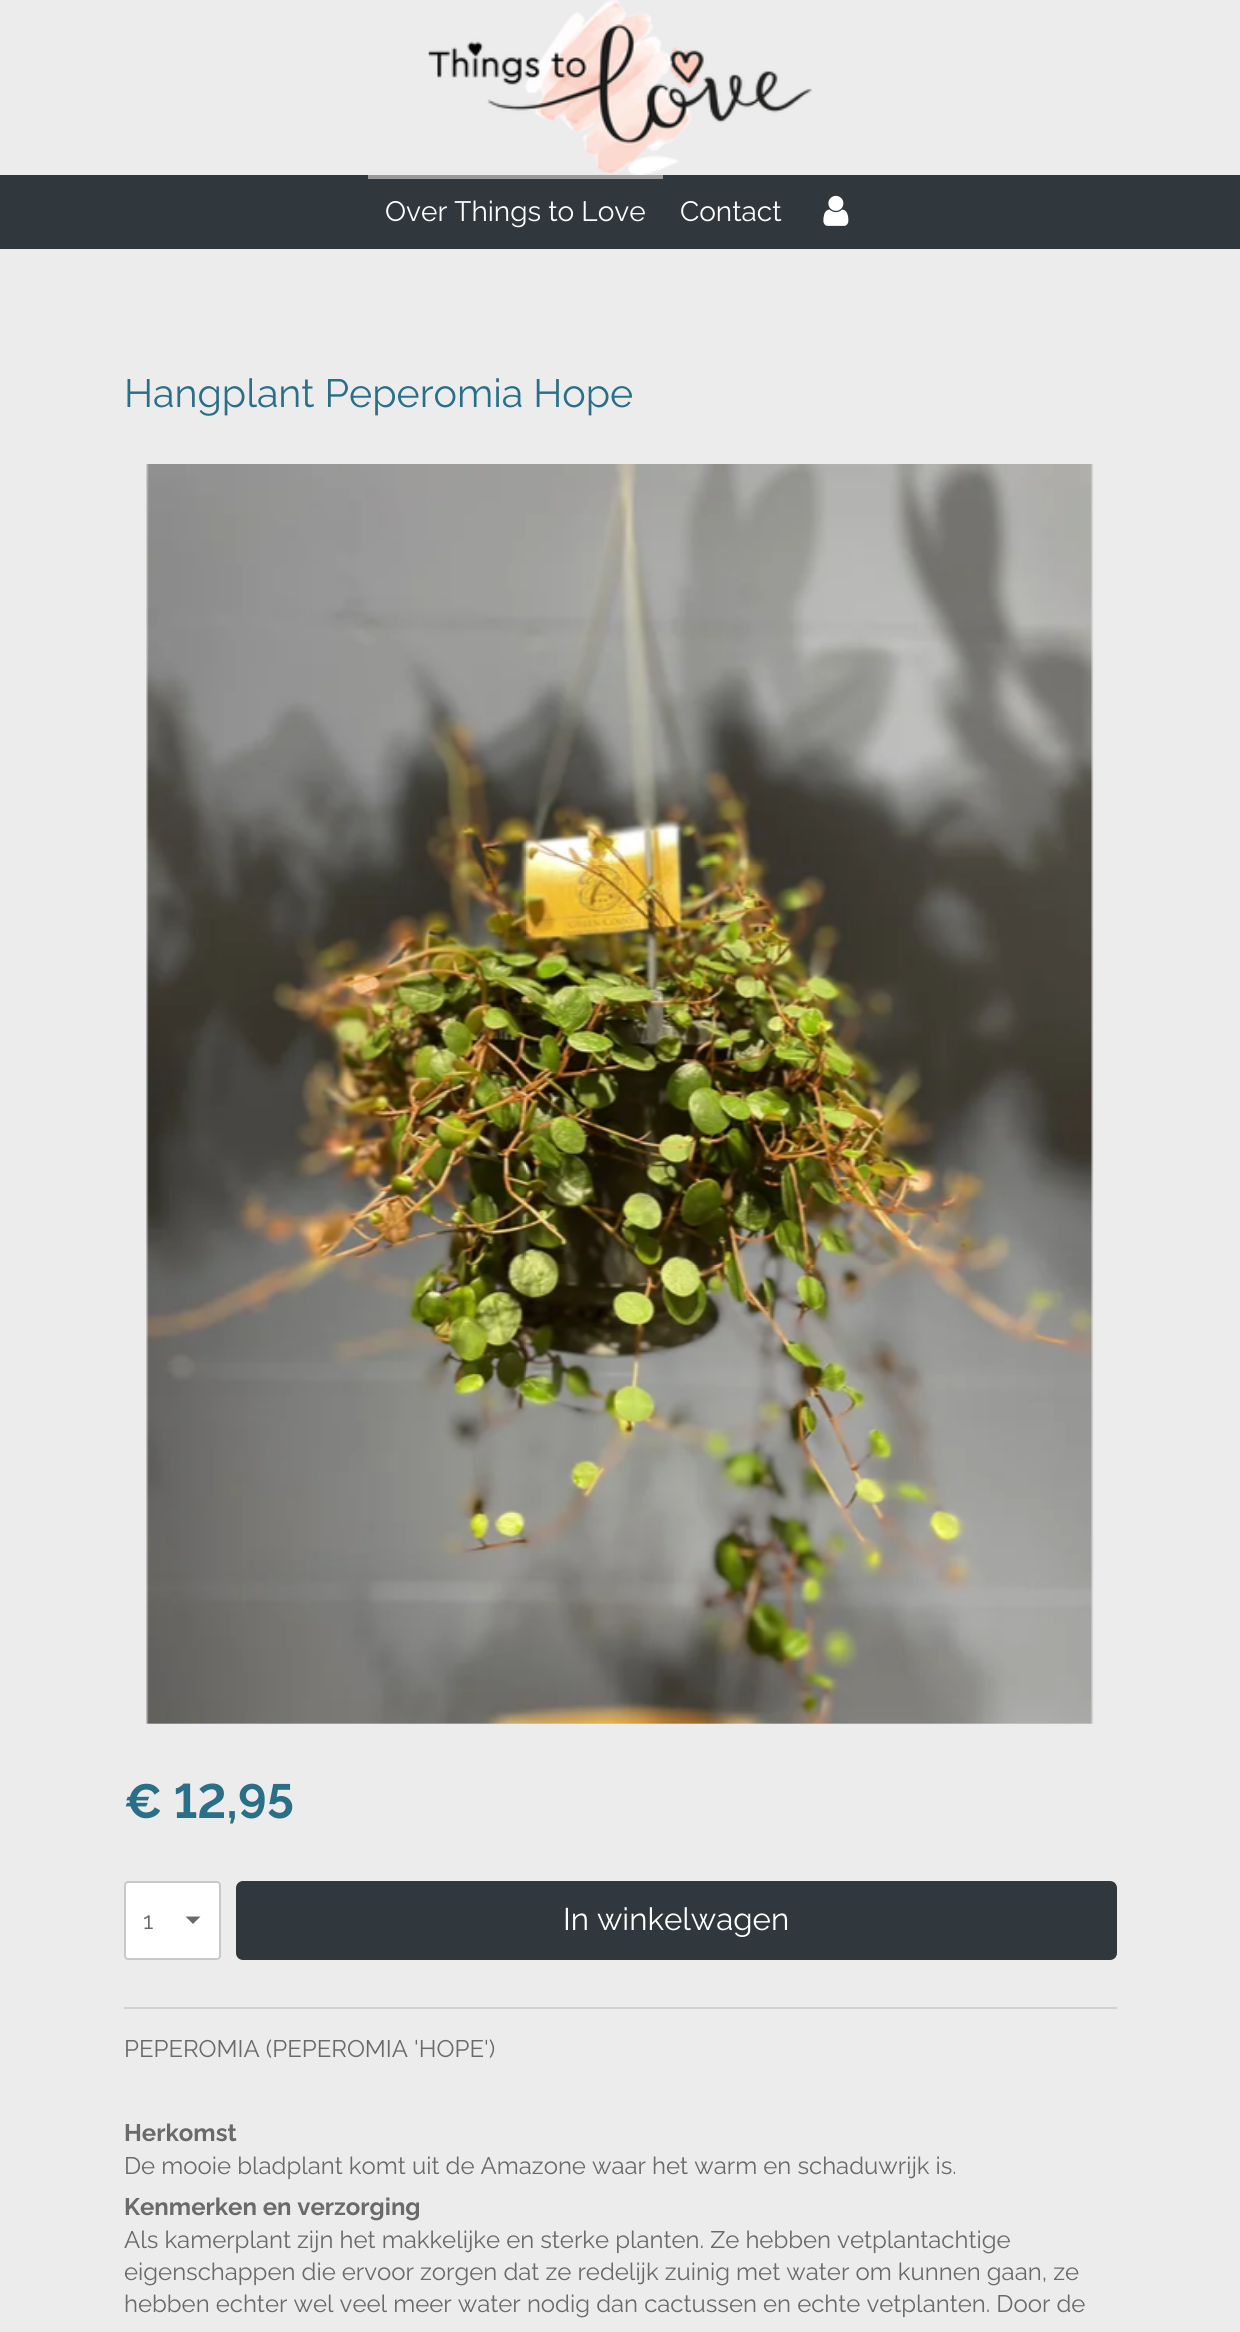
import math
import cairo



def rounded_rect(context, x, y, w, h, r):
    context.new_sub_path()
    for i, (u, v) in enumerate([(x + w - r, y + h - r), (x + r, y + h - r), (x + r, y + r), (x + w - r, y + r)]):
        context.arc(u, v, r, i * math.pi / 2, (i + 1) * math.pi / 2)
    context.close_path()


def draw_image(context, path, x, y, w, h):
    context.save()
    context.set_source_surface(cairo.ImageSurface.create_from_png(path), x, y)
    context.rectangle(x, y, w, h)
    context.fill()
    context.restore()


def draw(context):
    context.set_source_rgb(236 / 255, 236 / 255, 236 / 255)
    context.paint()
    draw_image(context, "images/1.png", 428, 0, 384, 175)
    context.set_source_rgb(48 / 255, 56 / 255, 61 / 255)
    context.rectangle(0, 175, 1240, 74)
    context.fill()
    context.set_source_rgb(153 / 255, 153 / 255, 153 / 255)
    context.rectangle(368, 175, 295, 4)
    context.fill()
    draw_image(context, "images/2.png", 823, 195, 26, 31)
    draw_image(context, "images/3.png", 146, 464, 948, 1260)
    context.set_source_rgb(1, 1, 1)
    rounded_rect(context, 124, 1881, 97, 79, 4)
    context.fill()
    context.set_source_rgb(106 / 255, 106 / 255, 106 / 255)
    context.new_path()
    context.move_to(193, 1924)
    context.line_to(185.5, 1916.5)
    context.line_to(200.5, 1916.5)
    context.close_path()
    context.fill()
    rounded_rect(context, 125, 1882, 95, 77, 3)
    context.set_source_rgba(147 / 255, 147 / 255, 147 / 255, 0.5)
    context.stroke()
    context.set_source_rgb(48 / 255, 56 / 255, 61 / 255)
    rounded_rect(context, 236, 1881, 881, 79, 7)
    context.fill()
    context.set_source_rgb(210 / 255, 210 / 255, 210 / 255)
    context.rectangle(124, 2007, 993, 2)
    context.fill()
    context.select_font_face("Raleway")
    context.set_font_size(28)
    context.set_source_rgb(1, 1, 1)
    context.move_to(385, 221)
    context.show_text("Over Things to Love")
    context.move_to(680, 221)
    context.show_text("Contact")
    context.set_font_size(39.4)
    context.set_source_rgb(41 / 255, 111 / 255, 135 / 255)
    context.move_to(124, 407)
    context.show_text("Hangplant Peperomia Hope")
    context.select_font_face("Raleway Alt", cairo.FontSlant.NORMAL, cairo.FontWeight.BOLD)
    context.set_font_size(48)
    context.move_to(124, 1818)
    context.show_text("€ 12,95")
    context.select_font_face("Raleway")
    context.set_font_size(23.95)
    context.set_source_rgb(106 / 255, 106 / 255, 106 / 255)
    context.move_to(143, 1929)
    context.show_text("1")
    context.set_font_size(31.25)
    context.set_source_rgb(1, 1, 1)
    context.move_to(563, 1930)
    context.show_text("In winkelwagen")
    context.set_font_size(23.95)
    context.set_source_rgb(106 / 255, 106 / 255, 106 / 255)
    context.move_to(124, 2057)
    context.show_text("PEPEROMIA (PEPEROMIA 'HOPE')")
    context.select_font_face("Raleway", cairo.FontSlant.NORMAL, cairo.FontWeight.BOLD)
    context.move_to(124, 2141)
    context.show_text("Herkomst")
    context.select_font_face("Raleway")
    context.move_to(124, 2174)
    context.show_text("De mooie bladplant komt uit de Amazone waar het warm en schaduwrijk is.")
    context.select_font_face("Raleway", cairo.FontSlant.NORMAL, cairo.FontWeight.BOLD)
    context.move_to(124, 2215)
    context.show_text("Kenmerken en verzorging")
    context.select_font_face("Raleway")
    context.move_to(124, 2248)
    context.show_text("Als kamerplant zijn het makkelijke en sterke planten. Ze hebben vetplantachtige")
    context.move_to(124, 2280)
    context.show_text("eigenschappen die ervoor zorgen dat ze redelijk zuinig met water om kunnen gaan, ze")
    context.move_to(124, 2312)
    context.show_text("hebben echter wel veel meer water nodig dan cactussen en echte vetplanten. Door de")


surface = cairo.ImageSurface(cairo.Format.RGB24, 1240, 2332)
context = cairo.Context(surface)
options = cairo.FontOptions()
options.set_hint_metrics(cairo.HintMetrics.OFF)
options.set_hint_style(cairo.HintStyle.NONE)
context.set_font_options(options)
context.set_miter_limit(4)
draw(context)
surface.write_to_png("out.png")
